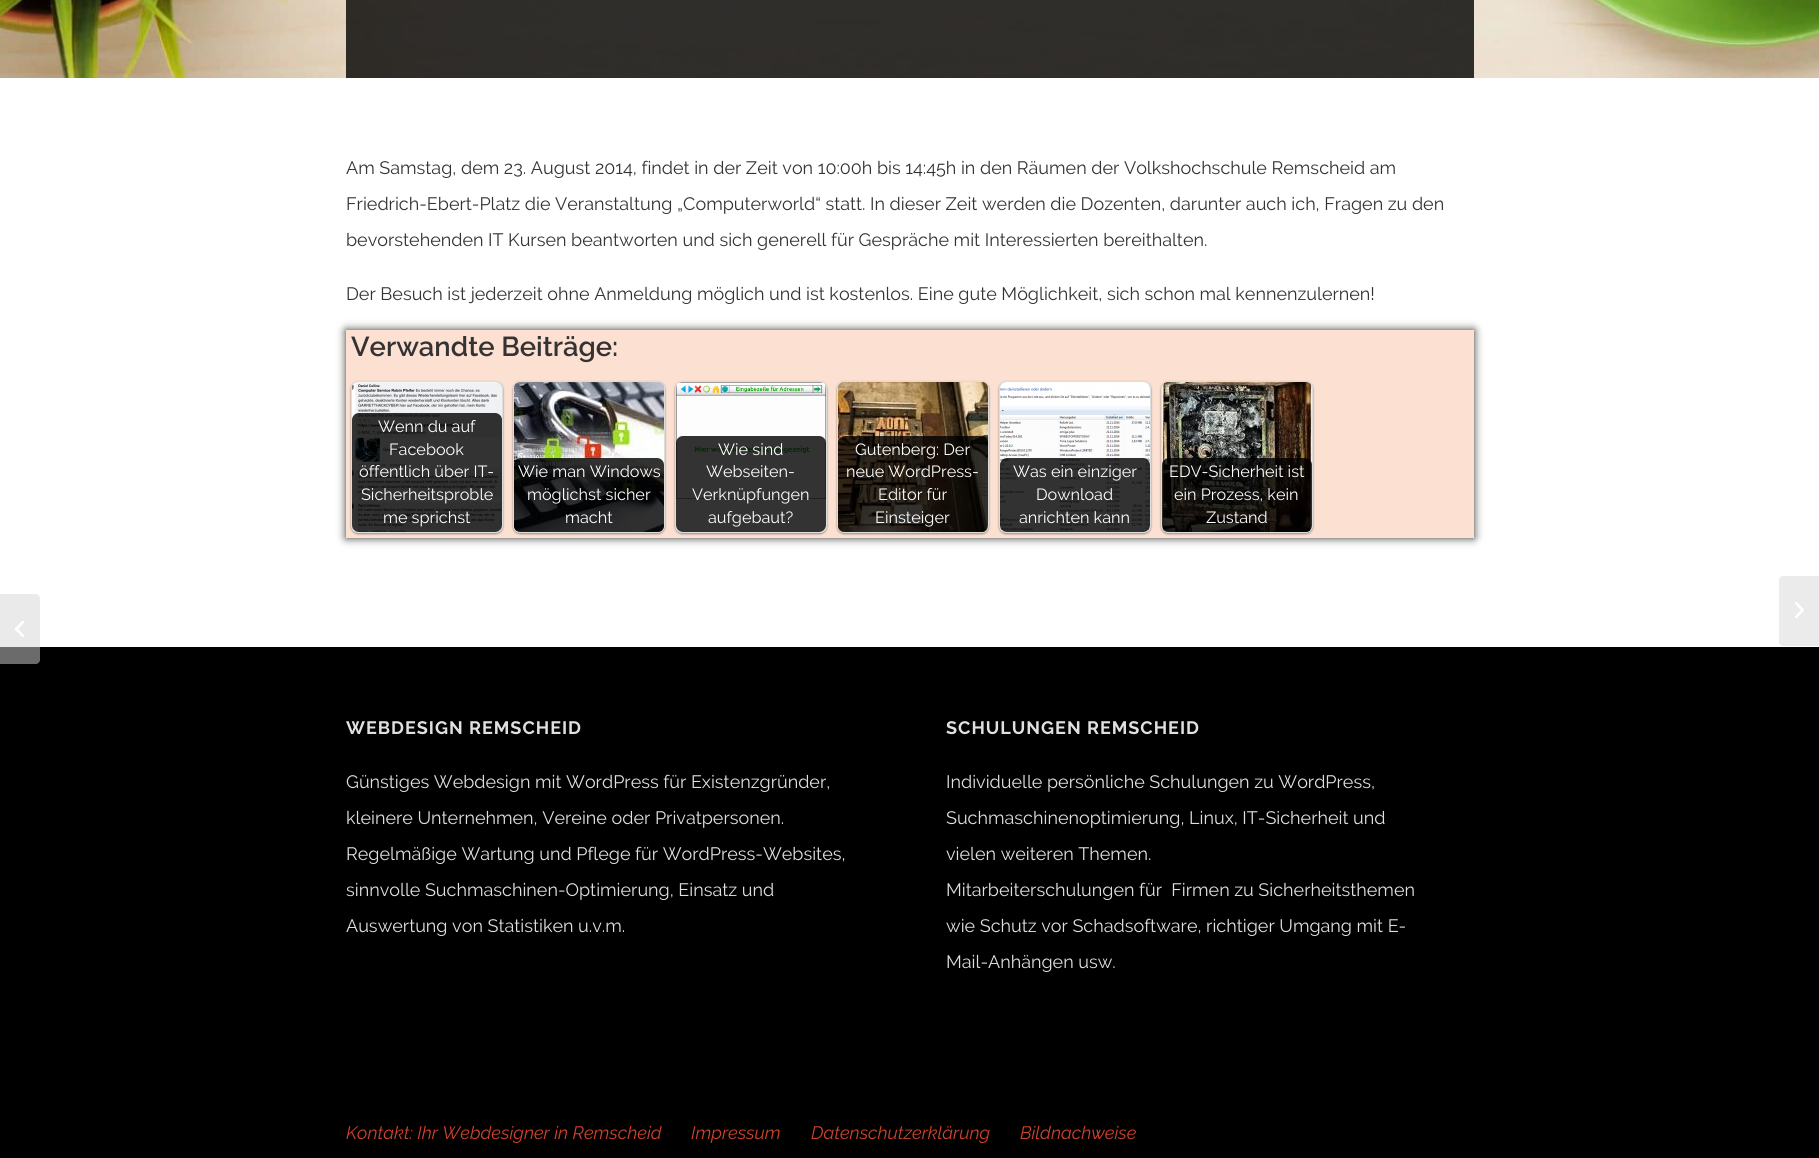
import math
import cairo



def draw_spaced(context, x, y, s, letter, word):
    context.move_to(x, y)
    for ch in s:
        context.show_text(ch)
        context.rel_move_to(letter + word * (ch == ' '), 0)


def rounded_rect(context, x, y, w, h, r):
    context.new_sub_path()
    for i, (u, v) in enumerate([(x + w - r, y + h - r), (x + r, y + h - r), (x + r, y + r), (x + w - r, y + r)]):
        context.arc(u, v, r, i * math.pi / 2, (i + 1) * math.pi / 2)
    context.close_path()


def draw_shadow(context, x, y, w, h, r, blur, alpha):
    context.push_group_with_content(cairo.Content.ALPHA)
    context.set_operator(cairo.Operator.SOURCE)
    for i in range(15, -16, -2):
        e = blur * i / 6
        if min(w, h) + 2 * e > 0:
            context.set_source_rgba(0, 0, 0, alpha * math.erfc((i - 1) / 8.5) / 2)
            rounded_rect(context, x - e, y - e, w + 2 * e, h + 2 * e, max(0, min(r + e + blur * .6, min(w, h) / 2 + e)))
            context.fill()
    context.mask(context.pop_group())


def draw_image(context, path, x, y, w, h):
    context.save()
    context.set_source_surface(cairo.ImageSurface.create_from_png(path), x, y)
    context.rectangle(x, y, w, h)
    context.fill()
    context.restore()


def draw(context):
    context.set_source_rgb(1, 1, 1)
    context.paint()
    draw_image(context, "images/1.png", 0, 0, 1819, 78)
    context.set_source_rgba(0, 0, 0, 0.8)
    context.rectangle(346, 0, 1128, 78)
    context.fill()
    context.set_source_rgb(51 / 255, 51 / 255, 51 / 255)
    draw_shadow(context, 346, 330, 1128, 208, 0, 4.5, 1)
    context.set_source_rgb(252 / 255, 225 / 255, 210 / 255)
    context.rectangle(346, 330, 1128, 208)
    context.fill()
    context.set_source_rgb(0, 0, 0)
    draw_shadow(context, 351, 382, 152, 152, 7, 1, 0.4)
    rounded_rect(context, 351.5, 381.5, 151, 151, 6.5)
    context.set_source_rgb(221 / 255, 221 / 255, 221 / 255)
    context.set_line_width(1)
    context.stroke()
    draw_image(context, "images/2.png", 352, 382, 150, 150)
    context.save()
    rounded_rect(context, 352, 382, 150, 150, 6)
    context.clip()
    context.set_source_rgba(0, 0, 0, 0.8)
    rounded_rect(context, 352, 413, 150, 119, 7)
    context.fill()
    context.restore()
    context.set_source_rgb(0, 0, 0)
    draw_shadow(context, 513, 382, 152, 152, 7, 1, 0.4)
    rounded_rect(context, 513.5, 381.5, 151, 151, 6.5)
    context.set_source_rgb(221 / 255, 221 / 255, 221 / 255)
    context.stroke()
    draw_image(context, "images/3.png", 514, 382, 150, 150)
    context.save()
    rounded_rect(context, 514, 382, 150, 150, 6)
    context.clip()
    context.set_source_rgba(0, 0, 0, 0.8)
    rounded_rect(context, 514, 458, 150, 74, 7)
    context.fill()
    context.restore()
    context.set_source_rgb(0, 0, 0)
    draw_shadow(context, 675, 382, 152, 152, 7, 1, 0.4)
    context.set_source_rgb(1, 1, 1)
    rounded_rect(context, 675.5, 381.5, 151, 151, 6.5)
    context.fill_preserve()
    context.set_source_rgb(221 / 255, 221 / 255, 221 / 255)
    context.stroke()
    draw_image(context, "images/4.png", 676, 382, 150, 117)
    context.save()
    rounded_rect(context, 676, 382, 150, 150, 6)
    context.clip()
    context.set_source_rgba(0, 0, 0, 0.8)
    rounded_rect(context, 676, 436, 150, 96, 7)
    context.fill()
    context.restore()
    context.set_source_rgb(0, 0, 0)
    draw_shadow(context, 837, 382, 152, 152, 7, 1, 0.4)
    rounded_rect(context, 837.5, 381.5, 151, 151, 6.5)
    context.set_source_rgb(221 / 255, 221 / 255, 221 / 255)
    context.stroke()
    draw_image(context, "images/5.png", 838, 382, 150, 150)
    context.save()
    rounded_rect(context, 838, 382, 150, 150, 6)
    context.clip()
    context.set_source_rgba(0, 0, 0, 0.8)
    rounded_rect(context, 838, 436, 150, 96, 7)
    context.fill()
    context.restore()
    context.set_source_rgb(0, 0, 0)
    draw_shadow(context, 999, 382, 152, 152, 7, 1, 0.4)
    rounded_rect(context, 999.5, 381.5, 151, 151, 6.5)
    context.set_source_rgb(221 / 255, 221 / 255, 221 / 255)
    context.stroke()
    draw_image(context, "images/6.png", 1000, 382, 150, 150)
    context.save()
    rounded_rect(context, 1000, 382, 150, 150, 6)
    context.clip()
    context.set_source_rgba(0, 0, 0, 0.8)
    rounded_rect(context, 1000, 458, 150, 74, 7)
    context.fill()
    context.restore()
    context.set_source_rgb(0, 0, 0)
    draw_shadow(context, 1161, 382, 152, 152, 7, 1, 0.4)
    rounded_rect(context, 1161.5, 381.5, 151, 151, 6.5)
    context.set_source_rgb(221 / 255, 221 / 255, 221 / 255)
    context.stroke()
    draw_image(context, "images/7.png", 1162, 382, 150, 150)
    context.save()
    rounded_rect(context, 1162, 382, 150, 150, 6)
    context.clip()
    context.set_source_rgba(0, 0, 0, 0.8)
    rounded_rect(context, 1162, 458, 150, 74, 7)
    context.fill()
    context.restore()
    context.set_source_rgb(0, 0, 0)
    context.rectangle(0, 647, 1819, 511)
    context.fill()
    context.set_source_rgba(215 / 255, 215 / 255, 215 / 255, 0.5)
    context.new_path()
    context.move_to(-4, 594)
    context.line_to(36, 594)
    context.curve_to(38, 594, 40, 596, 40, 598)
    context.line_to(40, 660)
    context.curve_to(40, 662, 38, 664, 36, 664)
    context.line_to(-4, 664)
    context.close_path()
    context.fill()
    draw_image(context, "images/8.png", 15, 621, 9, 16)
    context.set_source_rgb(235 / 255, 235 / 255, 235 / 255)
    context.new_path()
    context.move_to(1783, 576)
    context.line_to(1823, 576)
    context.line_to(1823, 646)
    context.line_to(1783, 646)
    context.curve_to(1781, 646, 1779, 644, 1779, 642)
    context.line_to(1779, 580)
    context.curve_to(1779, 578, 1781, 576, 1783, 576)
    context.close_path()
    context.fill()
    draw_image(context, "images/9.png", 1795, 602, 9, 16)
    context.select_font_face("Raleway")
    context.set_font_size(18)
    context.set_source_rgb(51 / 255, 51 / 255, 51 / 255)
    context.move_to(346, 174)
    context.show_text("Am Samstag, dem 23. August 2014, findet in der Zeit von 10:00h bis 14:45h in den Räumen der Volkshochschule Remscheid am")
    context.move_to(346, 210)
    context.show_text("Friedrich-Ebert-Platz die Veranstaltung „Computerworld“ statt. In dieser Zeit werden die Dozenten, darunter auch ich, Fragen zu den")
    context.move_to(346, 246)
    context.show_text("bevorstehenden IT Kursen beantworten und sich generell für Gespräche mit Interessierten bereithalten.")
    context.move_to(346, 300)
    context.show_text("Der Besuch ist jederzeit ohne Anmeldung möglich und ist kostenlos. Eine gute Möglichkeit, sich schon mal kennenzulernen!")
    context.select_font_face("Raleway SemiBold")
    context.set_font_size(27.4)
    context.move_to(351, 356)
    context.show_text("Verwandte Beiträge:")
    context.select_font_face("Raleway")
    context.set_font_size(16.25)
    context.set_source_rgb(1, 1, 1)
    context.move_to(378, 432)
    context.show_text("Wenn du auf")
    context.move_to(389, 455)
    context.show_text("Facebook")
    context.move_to(359, 477)
    context.show_text("öffentlich über IT-")
    context.move_to(361, 500)
    context.show_text("Sicherheitsproble")
    context.move_to(383, 523)
    context.show_text("me sprichst")
    context.move_to(518, 477)
    context.show_text("Wie man Windows")
    context.move_to(527, 500)
    context.show_text("möglichst sicher")
    context.move_to(565, 523)
    context.show_text("macht")
    context.move_to(718, 455)
    context.show_text("Wie sind")
    context.move_to(706, 477)
    context.show_text("Webseiten-")
    context.move_to(692, 500)
    context.show_text("Verknüpfungen")
    context.move_to(708, 523)
    context.show_text("aufgebaut?")
    context.move_to(855, 455)
    context.show_text("Gutenberg: Der")
    context.move_to(846, 477)
    context.show_text("neue WordPress-")
    context.move_to(878, 500)
    context.show_text("Editor für")
    context.move_to(875, 523)
    context.show_text("Einsteiger")
    context.move_to(1013, 477)
    context.show_text("Was ein einziger")
    context.move_to(1036, 500)
    context.show_text("Download")
    context.move_to(1019, 523)
    context.show_text("anrichten kann")
    context.move_to(1169, 477)
    context.show_text("EDV-Sicherheit ist")
    context.move_to(1174, 500)
    context.show_text("ein Prozess, kein")
    context.move_to(1206, 523)
    context.show_text("Zustand")
    context.select_font_face("Raleway", cairo.FontSlant.NORMAL, cairo.FontWeight.BOLD)
    context.set_font_size(18)
    context.set_source_rgb(224 / 255, 224 / 255, 224 / 255)
    draw_spaced(context, 346, 734, "WEBDESIGN REMSCHEID", 1, 0)
    context.select_font_face("Raleway")
    context.move_to(346, 788)
    context.show_text("Günstiges Webdesign mit WordPress für Existenzgründer,")
    context.move_to(346, 824)
    context.show_text("kleinere Unternehmen, Vereine oder Privatpersonen.")
    context.move_to(346, 860)
    context.show_text("Regelmäßige Wartung und Pflege für WordPress-Websites,")
    context.move_to(346, 896)
    context.show_text("sinnvolle Suchmaschinen-Optimierung, Einsatz und")
    context.move_to(346, 932)
    context.show_text("Auswertung von Statistiken u.v.m.")
    context.select_font_face("Raleway", cairo.FontSlant.NORMAL, cairo.FontWeight.BOLD)
    draw_spaced(context, 946, 734, "SCHULUNGEN REMSCHEID", 1, 0)
    context.select_font_face("Raleway")
    context.move_to(946, 788)
    context.show_text("Individuelle persönliche Schulungen zu WordPress,")
    context.move_to(946, 824)
    context.show_text("Suchmaschinenoptimierung, Linux, IT-Sicherheit und")
    context.move_to(946, 860)
    context.show_text("vielen weiteren Themen.")
    context.move_to(946, 896)
    context.show_text("Mitarbeiterschulungen für  Firmen zu Sicherheitsthemen")
    context.move_to(946, 932)
    context.show_text("wie Schutz vor Schadsoftware, richtiger Umgang mit E-")
    context.move_to(946, 968)
    context.show_text("Mail-Anhängen usw.")
    context.select_font_face("Raleway", cairo.FontSlant.ITALIC)
    context.set_source_rgb(208 / 255, 66 / 255, 44 / 255)
    context.move_to(346, 1139)
    context.show_text("Kontakt: Ihr Webdesigner in Remscheid")
    context.move_to(691, 1139)
    context.show_text("Impressum")
    context.move_to(811, 1139)
    context.show_text("Datenschutzerklärung")
    context.move_to(1020, 1139)
    context.show_text("Bildnachweise")


surface = cairo.ImageSurface(cairo.Format.RGB24, 1819, 1158)
context = cairo.Context(surface)
options = cairo.FontOptions()
options.set_hint_metrics(cairo.HintMetrics.OFF)
options.set_hint_style(cairo.HintStyle.NONE)
context.set_font_options(options)
context.set_miter_limit(4)
draw(context)
surface.write_to_png("out.png")
